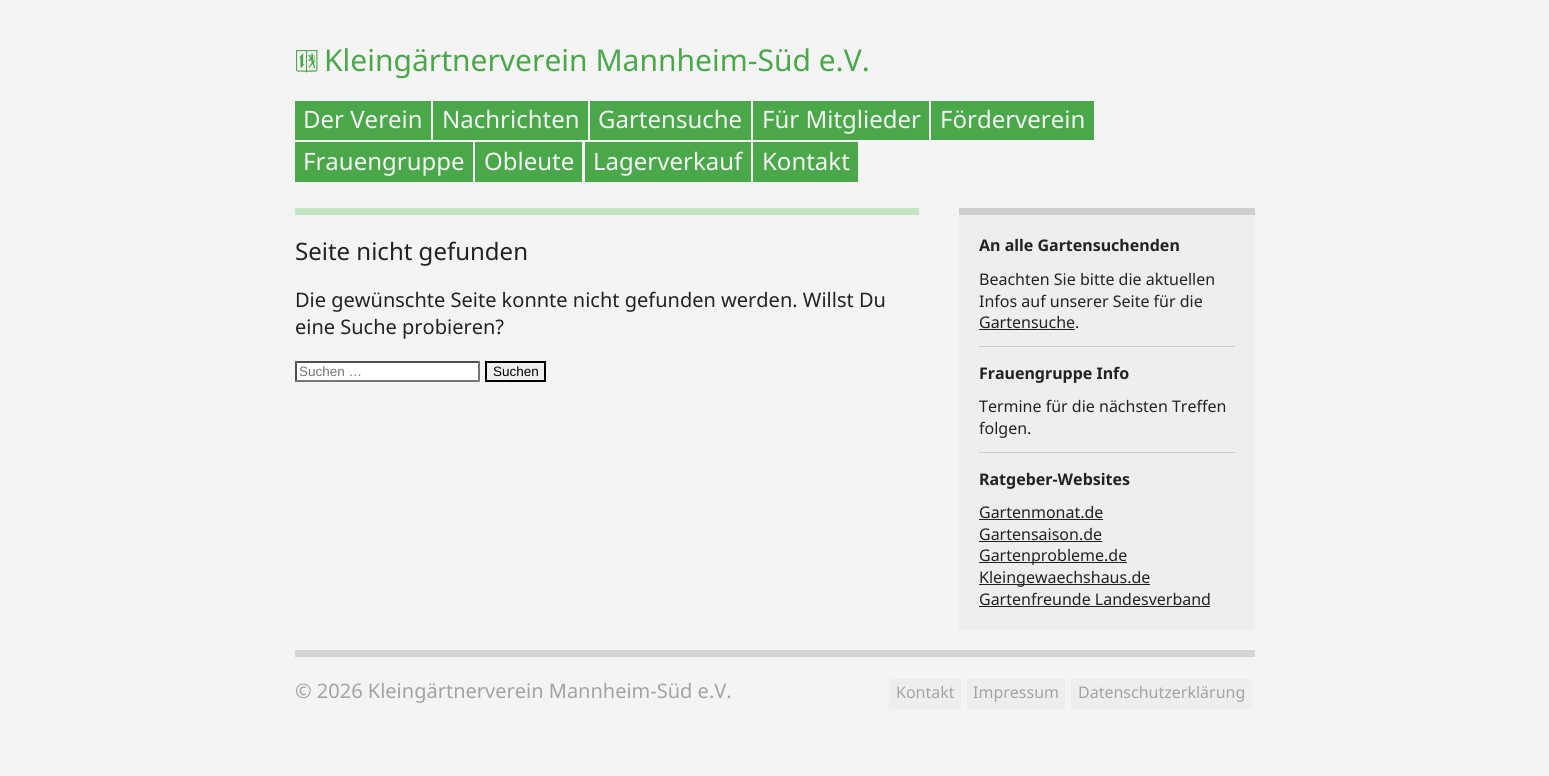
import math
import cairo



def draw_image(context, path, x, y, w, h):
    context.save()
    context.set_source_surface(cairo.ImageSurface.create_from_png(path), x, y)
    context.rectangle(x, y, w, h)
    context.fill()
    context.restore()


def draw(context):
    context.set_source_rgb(244 / 255, 244 / 255, 244 / 255)
    context.paint()
    draw_image(context, "images/1.png", 296, 50, 22, 23)
    context.set_source_rgb(74 / 255, 167 / 255, 74 / 255)
    context.rectangle(295, 101, 136, 39)
    context.fill()
    context.rectangle(433, 101, 155, 39)
    context.fill()
    context.rectangle(590, 101, 161, 39)
    context.fill()
    context.rectangle(753, 101, 176, 39)
    context.fill()
    context.rectangle(931, 101, 163, 39)
    context.fill()
    context.rectangle(295, 142, 178, 40)
    context.fill()
    context.rectangle(475, 142, 107, 40)
    context.fill()
    context.rectangle(585, 142, 166, 40)
    context.fill()
    context.rectangle(753, 142, 105, 40)
    context.fill()
    context.set_source_rgb(194 / 255, 230 / 255, 194 / 255)
    context.rectangle(295, 208, 624, 7)
    context.fill()
    context.set_source_rgb(1, 1, 1)
    context.rectangle(295, 361, 185, 21)
    context.fill()
    context.set_source_rgb(79 / 255, 79 / 255, 79 / 255)
    context.new_path()
    context.move_to(295, 361)
    context.line_to(480, 361)
    context.line_to(478, 363)
    context.line_to(297, 363)
    context.close_path()
    context.fill()
    context.set_source_rgb(118 / 255, 118 / 255, 118 / 255)
    context.new_path()
    context.move_to(480, 361)
    context.line_to(480, 382)
    context.line_to(478, 380)
    context.line_to(478, 363)
    context.close_path()
    context.fill()
    context.new_path()
    context.move_to(480, 382)
    context.line_to(295, 382)
    context.line_to(297, 380)
    context.line_to(478, 380)
    context.close_path()
    context.fill()
    context.set_source_rgb(79 / 255, 79 / 255, 79 / 255)
    context.new_path()
    context.move_to(295, 382)
    context.line_to(295, 361)
    context.line_to(297, 363)
    context.line_to(297, 380)
    context.close_path()
    context.fill()
    context.set_source_rgb(239 / 255, 239 / 255, 239 / 255)
    context.rectangle(486, 362, 59, 19)
    context.fill_preserve()
    context.set_source_rgb(0, 0, 0)
    context.stroke()
    context.set_source_rgb(238 / 255, 238 / 255, 238 / 255)
    context.rectangle(959, 215, 296, 415)
    context.fill()
    context.set_source_rgb(206 / 255, 206 / 255, 206 / 255)
    context.rectangle(959, 208, 296, 7)
    context.fill()
    context.set_source_rgb(34 / 255, 34 / 255, 34 / 255)
    context.rectangle(979, 329, 96, 1)
    context.fill()
    context.set_source_rgb(206 / 255, 206 / 255, 206 / 255)
    context.rectangle(979, 346, 256, 1)
    context.fill()
    context.rectangle(979, 452, 256, 1)
    context.fill()
    context.set_source_rgb(34 / 255, 34 / 255, 34 / 255)
    context.rectangle(979, 519, 124, 1)
    context.fill()
    context.rectangle(979, 541, 123, 1)
    context.fill()
    context.rectangle(979, 562, 148, 1)
    context.fill()
    context.rectangle(979, 584, 171, 1)
    context.fill()
    context.rectangle(979, 606, 231, 1)
    context.fill()
    context.set_source_rgb(212 / 255, 212 / 255, 212 / 255)
    context.rectangle(295, 650, 960, 7)
    context.fill()
    context.set_source_rgb(238 / 255, 238 / 255, 238 / 255)
    context.rectangle(889, 679, 72, 30)
    context.fill()
    context.rectangle(967, 679, 98, 30)
    context.fill()
    context.rectangle(1071, 679, 181, 30)
    context.fill()
    context.select_font_face("Noto Sans")
    context.set_font_size(30)
    context.set_source_rgb(74 / 255, 167 / 255, 74 / 255)
    context.move_to(324, 71)
    context.show_text("Kleingärtnerverein Mannheim-Süd e.V.")
    context.set_font_size(24)
    context.set_source_rgb(244 / 255, 244 / 255, 244 / 255)
    context.move_to(303, 128)
    context.show_text("Der Verein")
    context.move_to(442, 128)
    context.show_text("Nachrichten")
    context.move_to(598, 128)
    context.show_text("Gartensuche")
    context.move_to(762, 128)
    context.show_text("Für Mitglieder")
    context.move_to(940, 128)
    context.show_text("Förderverein")
    context.move_to(303, 170)
    context.show_text("Frauengruppe")
    context.move_to(484, 170)
    context.show_text("Obleute")
    context.move_to(593, 170)
    context.show_text("Lagerverkauf")
    context.move_to(762, 170)
    context.show_text("Kontakt")
    context.set_source_rgb(34 / 255, 34 / 255, 34 / 255)
    context.move_to(295, 260)
    context.show_text("Seite nicht gefunden")
    context.set_font_size(20)
    context.move_to(295, 307)
    context.show_text("Die gewünschte Seite konnte nicht gefunden werden. Willst Du")
    context.move_to(295, 334)
    context.show_text("eine Suche probieren?")
    context.select_font_face("Liberation Sans")
    context.set_font_size(13.5)
    context.set_source_rgb(117 / 255, 117 / 255, 117 / 255)
    context.move_to(299, 376)
    context.show_text("Suchen …")
    context.set_source_rgb(0, 0, 0)
    context.move_to(493, 376)
    context.show_text("Suchen")
    context.select_font_face("Noto Sans", cairo.FontSlant.NORMAL, cairo.FontWeight.BOLD)
    context.set_font_size(16)
    context.set_source_rgb(34 / 255, 34 / 255, 34 / 255)
    context.move_to(979, 251)
    context.show_text("An alle Gartensuchenden")
    context.select_font_face("Noto Sans")
    context.move_to(979, 285)
    context.show_text("Beachten Sie bitte die aktuellen")
    context.move_to(979, 307)
    context.show_text("Infos auf unserer Seite für die")
    context.move_to(979, 328)
    context.show_text("Gartensuche.")
    context.select_font_face("Noto Sans", cairo.FontSlant.NORMAL, cairo.FontWeight.BOLD)
    context.move_to(979, 379)
    context.show_text("Frauengruppe Info")
    context.select_font_face("Noto Sans")
    context.move_to(979, 412)
    context.show_text("Termine für die nächsten Treffen")
    context.move_to(979, 434)
    context.show_text("folgen.")
    context.select_font_face("Noto Sans", cairo.FontSlant.NORMAL, cairo.FontWeight.BOLD)
    context.move_to(979, 485)
    context.show_text("Ratgeber-Websites")
    context.select_font_face("Noto Sans")
    context.move_to(979, 518)
    context.show_text("Gartenmonat.de")
    context.move_to(979, 540)
    context.show_text("Gartensaison.de")
    context.move_to(979, 561)
    context.show_text("Gartenprobleme.de")
    context.move_to(979, 583)
    context.show_text("Kleingewaechshaus.de")
    context.move_to(979, 605)
    context.show_text("Gartenfreunde Landesverband")
    context.set_font_size(20)
    context.set_source_rgb(163 / 255, 163 / 255, 163 / 255)
    context.move_to(295, 698)
    context.show_text("© 2026 Kleingärtnerverein Mannheim-Süd e.V.")
    context.set_font_size(16)
    context.move_to(896, 698)
    context.show_text("Kontakt")
    context.move_to(973, 698)
    context.show_text("Impressum")
    context.move_to(1078, 698)
    context.show_text("Datenschutzerklärung")


surface = cairo.ImageSurface(cairo.Format.RGB24, 1549, 776)
context = cairo.Context(surface)
options = cairo.FontOptions()
options.set_hint_metrics(cairo.HintMetrics.OFF)
options.set_hint_style(cairo.HintStyle.NONE)
context.set_font_options(options)
context.set_miter_limit(4)
draw(context)
surface.write_to_png("out.png")
